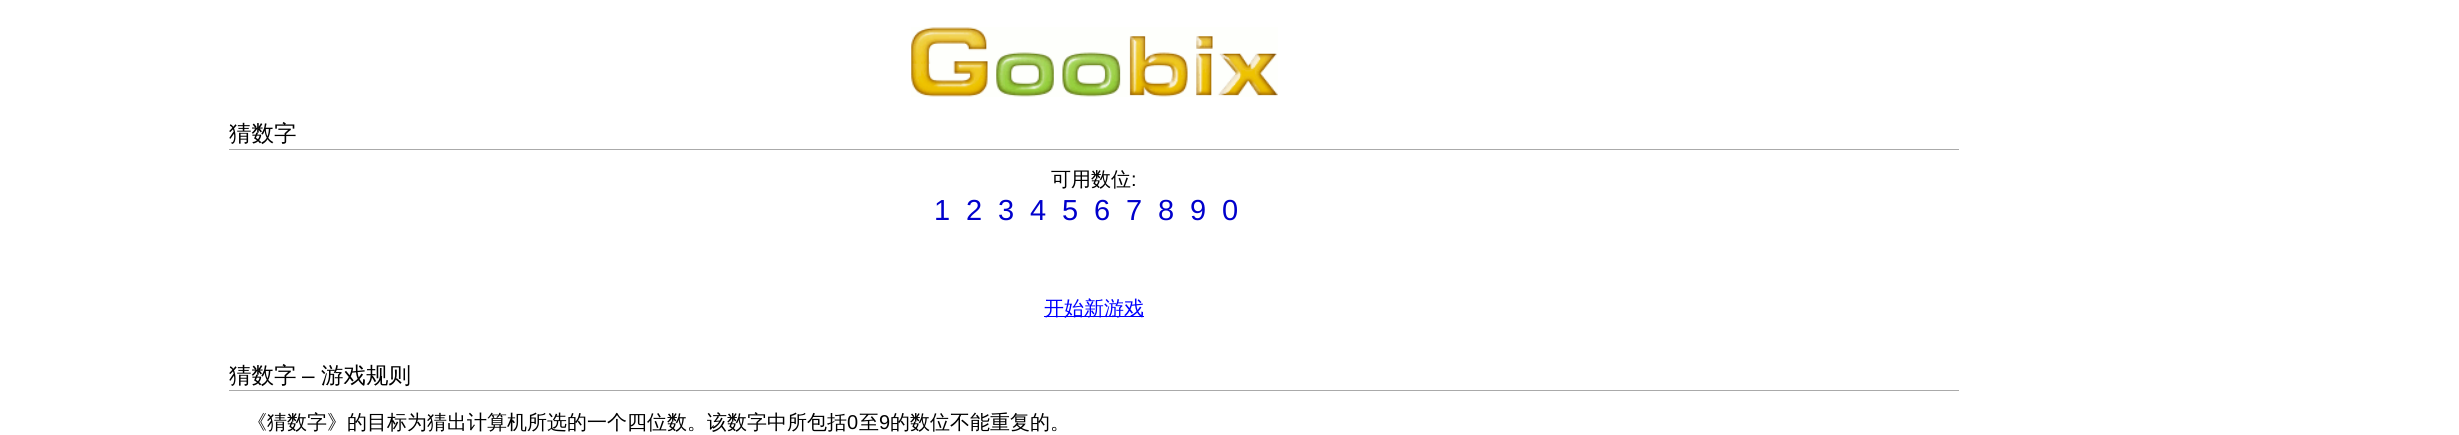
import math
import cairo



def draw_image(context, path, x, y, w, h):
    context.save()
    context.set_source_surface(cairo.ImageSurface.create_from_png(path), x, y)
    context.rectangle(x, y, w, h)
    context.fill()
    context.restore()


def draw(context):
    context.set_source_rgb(1, 1, 1)
    context.paint()
    draw_image(context, "images/1.png", 911, 27, 367, 70)
    context.set_source_rgb(170 / 255, 170 / 255, 170 / 255)
    context.rectangle(229, 149, 1730, 1)
    context.fill()
    context.set_source_rgb(0, 0, 1)
    context.rectangle(1044, 316, 100, 1)
    context.fill()
    context.set_source_rgb(170 / 255, 170 / 255, 170 / 255)
    context.rectangle(229, 390, 1730, 1)
    context.fill()
    context.select_font_face("WenQuanYi Zen Hei Medium")
    context.set_font_size(22.5)
    context.set_source_rgb(0, 0, 0)
    context.move_to(229, 141)
    context.show_text("猜数字")
    context.set_font_size(20)
    context.move_to(1051, 186)
    context.show_text("可用数位")
    context.select_font_face("Liberation Sans")
    context.move_to(1131, 186)
    context.show_text(":")
    context.set_font_size(29)
    context.set_source_rgb(0, 0, 204 / 255)
    context.move_to(934, 220)
    context.show_text("1")
    context.move_to(966, 220)
    context.show_text("2")
    context.move_to(998, 220)
    context.show_text("3")
    context.move_to(1030, 220)
    context.show_text("4")
    context.move_to(1062, 220)
    context.show_text("5")
    context.move_to(1094, 220)
    context.show_text("6")
    context.move_to(1126, 220)
    context.show_text("7")
    context.move_to(1158, 220)
    context.show_text("8")
    context.move_to(1190, 220)
    context.show_text("9")
    context.move_to(1222, 220)
    context.show_text("0")
    context.select_font_face("WenQuanYi Zen Hei Medium")
    context.set_font_size(20)
    context.set_source_rgb(0, 0, 1)
    context.move_to(1044, 315)
    context.show_text("开始新游戏")
    context.set_font_size(22.5)
    context.set_source_rgb(0, 0, 0)
    context.move_to(229, 383)
    context.show_text("猜数字")
    context.select_font_face("Liberation Sans")
    context.move_to(302, 383)
    context.show_text("–")
    context.select_font_face("WenQuanYi Zen Hei Medium")
    context.move_to(321, 383)
    context.show_text("游戏规则")
    context.set_font_size(20)
    context.move_to(247, 429)
    context.show_text("《猜数字》的目标为猜出计算机所选的一个四位数。该数字中所包括")
    context.select_font_face("Liberation Sans")
    context.move_to(847, 429)
    context.show_text("0")
    context.select_font_face("WenQuanYi Zen Hei Medium")
    context.move_to(859, 429)
    context.show_text("至")
    context.select_font_face("Liberation Sans")
    context.move_to(879, 429)
    context.show_text("9")
    context.select_font_face("WenQuanYi Zen Hei Medium")
    context.move_to(890, 429)
    context.show_text("的数位不能重复的。")


surface = cairo.ImageSurface(cairo.Format.RGB24, 2459, 435)
context = cairo.Context(surface)
options = cairo.FontOptions()
options.set_hint_metrics(cairo.HintMetrics.OFF)
options.set_hint_style(cairo.HintStyle.NONE)
context.set_font_options(options)
context.set_miter_limit(4)
draw(context)
surface.write_to_png("out.png")
